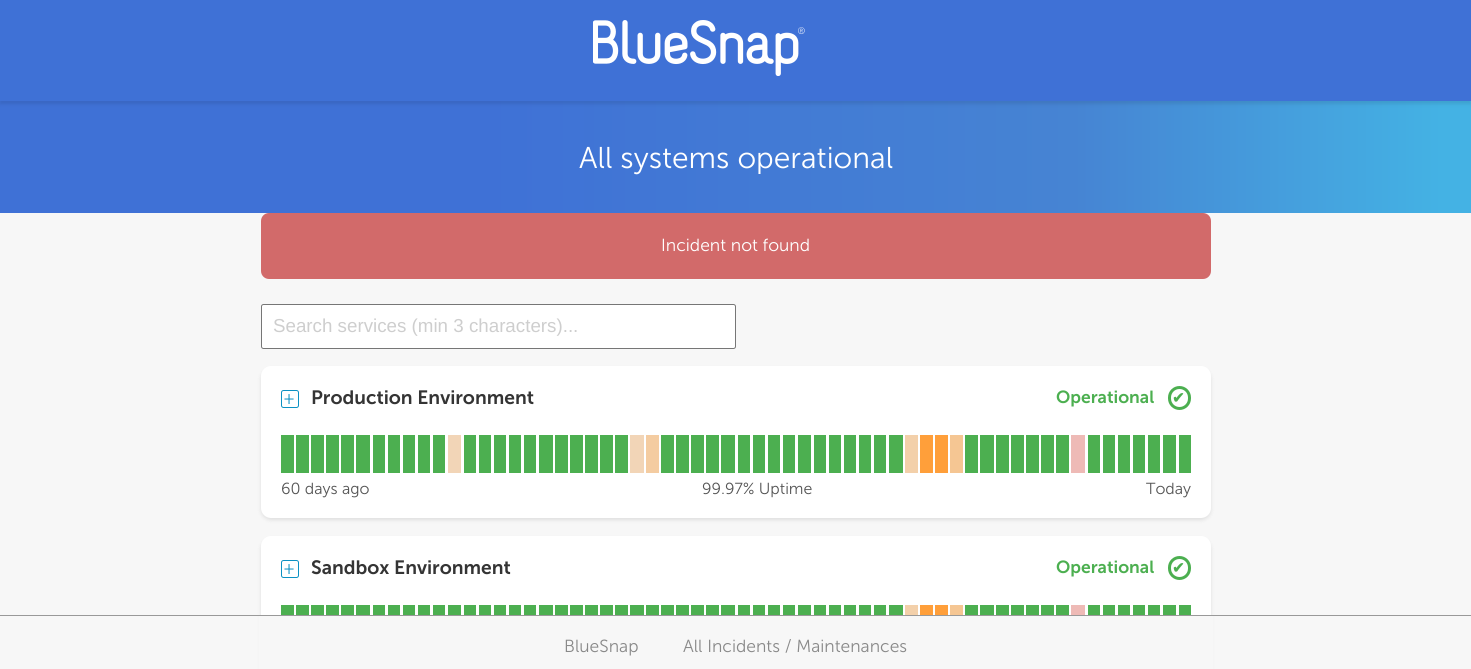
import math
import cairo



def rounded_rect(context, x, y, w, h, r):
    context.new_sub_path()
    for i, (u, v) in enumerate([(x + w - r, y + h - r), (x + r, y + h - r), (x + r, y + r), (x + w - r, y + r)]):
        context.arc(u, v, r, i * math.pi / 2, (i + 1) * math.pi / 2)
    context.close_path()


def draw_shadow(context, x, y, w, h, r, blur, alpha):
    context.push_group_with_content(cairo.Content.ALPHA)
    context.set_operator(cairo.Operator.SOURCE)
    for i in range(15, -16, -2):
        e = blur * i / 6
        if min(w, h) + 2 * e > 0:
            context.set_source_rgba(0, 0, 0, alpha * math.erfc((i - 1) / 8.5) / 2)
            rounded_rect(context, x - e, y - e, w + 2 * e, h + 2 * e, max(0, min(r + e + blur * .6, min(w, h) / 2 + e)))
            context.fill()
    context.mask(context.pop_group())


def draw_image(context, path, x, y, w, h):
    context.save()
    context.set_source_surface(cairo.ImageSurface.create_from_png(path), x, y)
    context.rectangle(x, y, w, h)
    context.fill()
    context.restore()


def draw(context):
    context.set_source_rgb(247 / 255, 247 / 255, 247 / 255)
    context.paint()
    gradient = cairo.LinearGradient(0, 106, 1471, 106)
    gradient.add_color_stop_rgba(0.33, 63 / 255, 113 / 255, 214 / 255, 1)
    gradient.add_color_stop_rgba(0.73, 70 / 255, 132 / 255, 211 / 255, 1)
    gradient.add_color_stop_rgba(0.98, 68 / 255, 178 / 255, 228 / 255, 1)
    context.set_source(gradient)
    context.rectangle(0, 101, 1471, 112)
    context.fill()
    context.set_source_rgb(0, 0, 0)
    draw_shadow(context, 0, 3, 1471, 101, 0, 2, 0.1)
    context.set_source_rgb(63 / 255, 113 / 255, 214 / 255)
    context.rectangle(0, 0, 1471, 101)
    context.fill()
    draw_image(context, "images/1.png", 593, 20, 212, 56)
    context.set_source_rgb(210 / 255, 106 / 255, 106 / 255)
    rounded_rect(context, 261, 213, 950, 66, 8)
    context.fill()
    context.set_source_rgb(1, 1, 1)
    rounded_rect(context, 261.5, 304.5, 474, 44, 2)
    context.fill_preserve()
    context.set_source_rgb(118 / 255, 118 / 255, 118 / 255)
    context.set_line_width(1)
    context.stroke()
    context.set_source_rgb(0, 0, 0)
    draw_shadow(context, 261, 369, 950, 151, 10, 2, 0.1)
    context.set_source_rgb(1, 1, 1)
    rounded_rect(context, 261, 366, 950, 152, 10)
    context.fill()
    rounded_rect(context, 281.5, 390.5, 17, 17, 2)
    context.set_source_rgb(12 / 255, 145 / 255, 195 / 255)
    context.stroke()
    rounded_rect(context, 1169.5, 387.5, 20, 21, 10)
    context.set_source_rgb(76 / 255, 175 / 255, 80 / 255)
    context.set_line_width(3)
    context.stroke()
    context.rectangle(281, 435, 13, 38)
    context.fill()
    context.rectangle(296, 435, 13, 38)
    context.fill()
    context.rectangle(311, 435, 13, 38)
    context.fill()
    context.rectangle(326, 435, 13, 38)
    context.fill()
    context.rectangle(341, 435, 13, 38)
    context.fill()
    context.rectangle(356, 435, 14, 38)
    context.fill()
    context.rectangle(373, 435, 12, 38)
    context.fill()
    context.rectangle(388, 435, 12, 38)
    context.fill()
    context.rectangle(403, 435, 12, 38)
    context.fill()
    context.rectangle(418, 435, 12, 38)
    context.fill()
    context.rectangle(433, 435, 12, 38)
    context.fill()
    context.set_source_rgb(242 / 255, 213 / 255, 183 / 255)
    context.rectangle(448, 435, 13, 38)
    context.fill()
    context.set_source_rgb(76 / 255, 175 / 255, 80 / 255)
    context.rectangle(464, 435, 12, 38)
    context.fill()
    context.rectangle(479, 435, 12, 38)
    context.fill()
    context.rectangle(494, 435, 12, 38)
    context.fill()
    context.rectangle(509, 435, 12, 38)
    context.fill()
    context.rectangle(524, 435, 12, 38)
    context.fill()
    context.rectangle(539, 435, 14, 38)
    context.fill()
    context.rectangle(555, 435, 13, 38)
    context.fill()
    context.rectangle(570, 435, 13, 38)
    context.fill()
    context.rectangle(585, 435, 13, 38)
    context.fill()
    context.rectangle(600, 435, 13, 38)
    context.fill()
    context.rectangle(615, 435, 13, 38)
    context.fill()
    context.set_source_rgb(242 / 255, 213 / 255, 183 / 255)
    context.rectangle(630, 435, 14, 38)
    context.fill()
    context.set_source_rgb(244 / 255, 204 / 255, 161 / 255)
    context.rectangle(646, 435, 13, 38)
    context.fill()
    context.set_source_rgb(76 / 255, 175 / 255, 80 / 255)
    context.rectangle(661, 435, 13, 38)
    context.fill()
    context.rectangle(676, 435, 13, 38)
    context.fill()
    context.rectangle(691, 435, 13, 38)
    context.fill()
    context.rectangle(706, 435, 13, 38)
    context.fill()
    context.rectangle(721, 435, 14, 38)
    context.fill()
    context.rectangle(738, 435, 12, 38)
    context.fill()
    context.rectangle(753, 435, 12, 38)
    context.fill()
    context.rectangle(768, 435, 12, 38)
    context.fill()
    context.rectangle(783, 435, 12, 38)
    context.fill()
    context.rectangle(798, 435, 13, 38)
    context.fill()
    context.rectangle(814, 435, 12, 38)
    context.fill()
    context.rectangle(829, 435, 12, 38)
    context.fill()
    context.rectangle(844, 435, 12, 38)
    context.fill()
    context.rectangle(859, 435, 12, 38)
    context.fill()
    context.rectangle(874, 435, 12, 38)
    context.fill()
    context.rectangle(889, 435, 14, 38)
    context.fill()
    context.set_source_rgb(243 / 255, 208 / 255, 170 / 255)
    context.rectangle(905, 435, 13, 38)
    context.fill()
    context.set_source_rgb(1, 159 / 255, 58 / 255)
    context.rectangle(920, 435, 13, 38)
    context.fill()
    context.rectangle(935, 435, 13, 38)
    context.fill()
    context.set_source_rgb(245 / 255, 198 / 255, 147 / 255)
    context.rectangle(950, 435, 13, 38)
    context.fill()
    context.set_source_rgb(76 / 255, 175 / 255, 80 / 255)
    context.rectangle(965, 435, 13, 38)
    context.fill()
    context.rectangle(980, 435, 14, 38)
    context.fill()
    context.rectangle(996, 435, 13, 38)
    context.fill()
    context.rectangle(1011, 435, 13, 38)
    context.fill()
    context.rectangle(1026, 435, 13, 38)
    context.fill()
    context.rectangle(1041, 435, 13, 38)
    context.fill()
    context.rectangle(1056, 435, 13, 38)
    context.fill()
    context.set_source_rgb(238 / 255, 186 / 255, 182 / 255)
    context.rectangle(1071, 435, 14, 38)
    context.fill()
    context.set_source_rgb(76 / 255, 175 / 255, 80 / 255)
    context.rectangle(1088, 435, 12, 38)
    context.fill()
    context.rectangle(1103, 435, 12, 38)
    context.fill()
    context.rectangle(1118, 435, 12, 38)
    context.fill()
    context.rectangle(1133, 435, 12, 38)
    context.fill()
    context.rectangle(1148, 435, 12, 38)
    context.fill()
    context.rectangle(1163, 435, 13, 38)
    context.fill()
    context.rectangle(1179, 435, 12, 38)
    context.fill()
    context.set_source_rgb(0, 0, 0)
    draw_shadow(context, 261, 539, 950, 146, 10, 2, 0.1)
    context.set_source_rgb(1, 1, 1)
    rounded_rect(context, 261, 536, 950, 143, 10)
    context.fill()
    rounded_rect(context, 281.5, 560.5, 17, 17, 2)
    context.set_source_rgb(12 / 255, 145 / 255, 195 / 255)
    context.set_line_width(1)
    context.stroke()
    rounded_rect(context, 1169.5, 557.5, 20, 21, 10)
    context.set_source_rgb(76 / 255, 175 / 255, 80 / 255)
    context.set_line_width(3)
    context.stroke()
    context.rectangle(281, 605, 13, 10)
    context.fill()
    context.rectangle(296, 605, 13, 10)
    context.fill()
    context.rectangle(311, 605, 13, 10)
    context.fill()
    context.rectangle(326, 605, 13, 10)
    context.fill()
    context.rectangle(341, 605, 13, 10)
    context.fill()
    context.rectangle(356, 605, 14, 10)
    context.fill()
    context.rectangle(373, 605, 12, 10)
    context.fill()
    context.rectangle(388, 605, 12, 10)
    context.fill()
    context.rectangle(403, 605, 12, 10)
    context.fill()
    context.rectangle(418, 605, 12, 10)
    context.fill()
    context.rectangle(433, 605, 12, 10)
    context.fill()
    context.rectangle(448, 605, 13, 10)
    context.fill()
    context.rectangle(464, 605, 12, 10)
    context.fill()
    context.rectangle(479, 605, 12, 10)
    context.fill()
    context.rectangle(494, 605, 12, 10)
    context.fill()
    context.rectangle(509, 605, 12, 10)
    context.fill()
    context.rectangle(524, 605, 12, 10)
    context.fill()
    context.rectangle(539, 605, 14, 10)
    context.fill()
    context.rectangle(555, 605, 13, 10)
    context.fill()
    context.rectangle(570, 605, 13, 10)
    context.fill()
    context.rectangle(585, 605, 13, 10)
    context.fill()
    context.rectangle(600, 605, 13, 10)
    context.fill()
    context.rectangle(615, 605, 13, 10)
    context.fill()
    context.rectangle(630, 605, 14, 10)
    context.fill()
    context.rectangle(646, 605, 13, 10)
    context.fill()
    context.rectangle(661, 605, 13, 10)
    context.fill()
    context.rectangle(676, 605, 13, 10)
    context.fill()
    context.rectangle(691, 605, 13, 10)
    context.fill()
    context.rectangle(706, 605, 13, 10)
    context.fill()
    context.rectangle(721, 605, 14, 10)
    context.fill()
    context.rectangle(738, 605, 12, 10)
    context.fill()
    context.rectangle(753, 605, 12, 10)
    context.fill()
    context.rectangle(768, 605, 12, 10)
    context.fill()
    context.rectangle(783, 605, 12, 10)
    context.fill()
    context.rectangle(798, 605, 13, 10)
    context.fill()
    context.rectangle(814, 605, 12, 10)
    context.fill()
    context.rectangle(829, 605, 12, 10)
    context.fill()
    context.rectangle(844, 605, 12, 10)
    context.fill()
    context.rectangle(859, 605, 12, 10)
    context.fill()
    context.rectangle(874, 605, 12, 10)
    context.fill()
    context.rectangle(889, 605, 14, 10)
    context.fill()
    context.set_source_rgb(243 / 255, 208 / 255, 170 / 255)
    context.rectangle(905, 605, 13, 10)
    context.fill()
    context.set_source_rgb(1, 159 / 255, 58 / 255)
    context.rectangle(920, 605, 13, 10)
    context.fill()
    context.rectangle(935, 605, 13, 10)
    context.fill()
    context.set_source_rgb(245 / 255, 198 / 255, 147 / 255)
    context.rectangle(950, 605, 13, 10)
    context.fill()
    context.set_source_rgb(76 / 255, 175 / 255, 80 / 255)
    context.rectangle(965, 605, 13, 10)
    context.fill()
    context.rectangle(980, 605, 14, 10)
    context.fill()
    context.rectangle(996, 605, 13, 10)
    context.fill()
    context.rectangle(1011, 605, 13, 10)
    context.fill()
    context.rectangle(1026, 605, 13, 10)
    context.fill()
    context.rectangle(1041, 605, 13, 10)
    context.fill()
    context.rectangle(1056, 605, 13, 10)
    context.fill()
    context.set_source_rgb(238 / 255, 186 / 255, 182 / 255)
    context.rectangle(1071, 605, 14, 10)
    context.fill()
    context.set_source_rgb(76 / 255, 175 / 255, 80 / 255)
    context.rectangle(1088, 605, 12, 10)
    context.fill()
    context.rectangle(1103, 605, 12, 10)
    context.fill()
    context.rectangle(1118, 605, 12, 10)
    context.fill()
    context.rectangle(1133, 605, 12, 10)
    context.fill()
    context.rectangle(1148, 605, 12, 10)
    context.fill()
    context.rectangle(1163, 605, 13, 10)
    context.fill()
    context.rectangle(1179, 605, 12, 10)
    context.fill()
    context.set_source_rgb(247 / 255, 247 / 255, 247 / 255)
    context.rectangle(259, 616, 954, 53)
    context.fill()
    context.set_source_rgb(153 / 255, 153 / 255, 153 / 255)
    context.rectangle(0, 615, 1471, 1)
    context.fill()
    context.select_font_face("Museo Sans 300 Light")
    context.set_font_size(30)
    context.set_source_rgb(1, 1, 1)
    context.move_to(579, 168)
    context.show_text("All systems operational")
    context.set_font_size(17.5)
    context.move_to(661, 251)
    context.show_text("Incident not found")
    context.select_font_face("Liberation Sans")
    context.set_font_size(18.75)
    context.set_source_rgb(206 / 255, 206 / 255, 206 / 255)
    context.move_to(273, 332)
    context.show_text("Search services (min 3 characters)...")
    context.select_font_face("Museo Sans 300 Light")
    context.set_font_size(17.5)
    context.set_source_rgb(12 / 255, 145 / 255, 195 / 255)
    context.move_to(283, 404)
    context.show_text("+")
    context.select_font_face("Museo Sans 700 SemiBold")
    context.set_font_size(19.25)
    context.set_source_rgb(52 / 255, 52 / 255, 52 / 255)
    context.move_to(311, 404)
    context.show_text("Production Environment")
    context.set_font_size(17.5)
    context.set_source_rgb(76 / 255, 175 / 255, 80 / 255)
    context.move_to(1056, 403)
    context.show_text("Operational")
    context.select_font_face("DejaVu Sans", cairo.FontSlant.NORMAL, cairo.FontWeight.BOLD)
    context.set_font_size(15)
    context.move_to(1172, 403)
    context.show_text("✔")
    context.select_font_face("Museo Sans 300 Light")
    context.set_font_size(16)
    context.set_source_rgb(85 / 255, 85 / 255, 85 / 255)
    context.move_to(281, 494)
    context.show_text("60 days ago")
    context.move_to(702, 494)
    context.show_text("99.97% Uptime")
    context.move_to(1146, 494)
    context.show_text("Today")
    context.set_font_size(17.5)
    context.set_source_rgb(12 / 255, 145 / 255, 195 / 255)
    context.move_to(283, 574)
    context.show_text("+")
    context.select_font_face("Museo Sans 700 SemiBold")
    context.set_font_size(19.25)
    context.set_source_rgb(52 / 255, 52 / 255, 52 / 255)
    context.move_to(311, 574)
    context.show_text("Sandbox Environment")
    context.set_font_size(17.5)
    context.set_source_rgb(76 / 255, 175 / 255, 80 / 255)
    context.move_to(1056, 573)
    context.show_text("Operational")
    context.select_font_face("DejaVu Sans", cairo.FontSlant.NORMAL, cairo.FontWeight.BOLD)
    context.set_font_size(15)
    context.move_to(1172, 573)
    context.show_text("✔")
    context.select_font_face("Museo Sans 300 Light")
    context.set_font_size(17.5)
    context.set_source_rgb(137 / 255, 137 / 255, 137 / 255)
    context.move_to(564, 652)
    context.show_text("BlueSnap")
    context.move_to(683, 652)
    context.show_text("All Incidents / Maintenances")


surface = cairo.ImageSurface(cairo.Format.RGB24, 1471, 669)
context = cairo.Context(surface)
options = cairo.FontOptions()
options.set_hint_metrics(cairo.HintMetrics.OFF)
options.set_hint_style(cairo.HintStyle.NONE)
context.set_font_options(options)
context.set_miter_limit(4)
draw(context)
surface.write_to_png("out.png")
